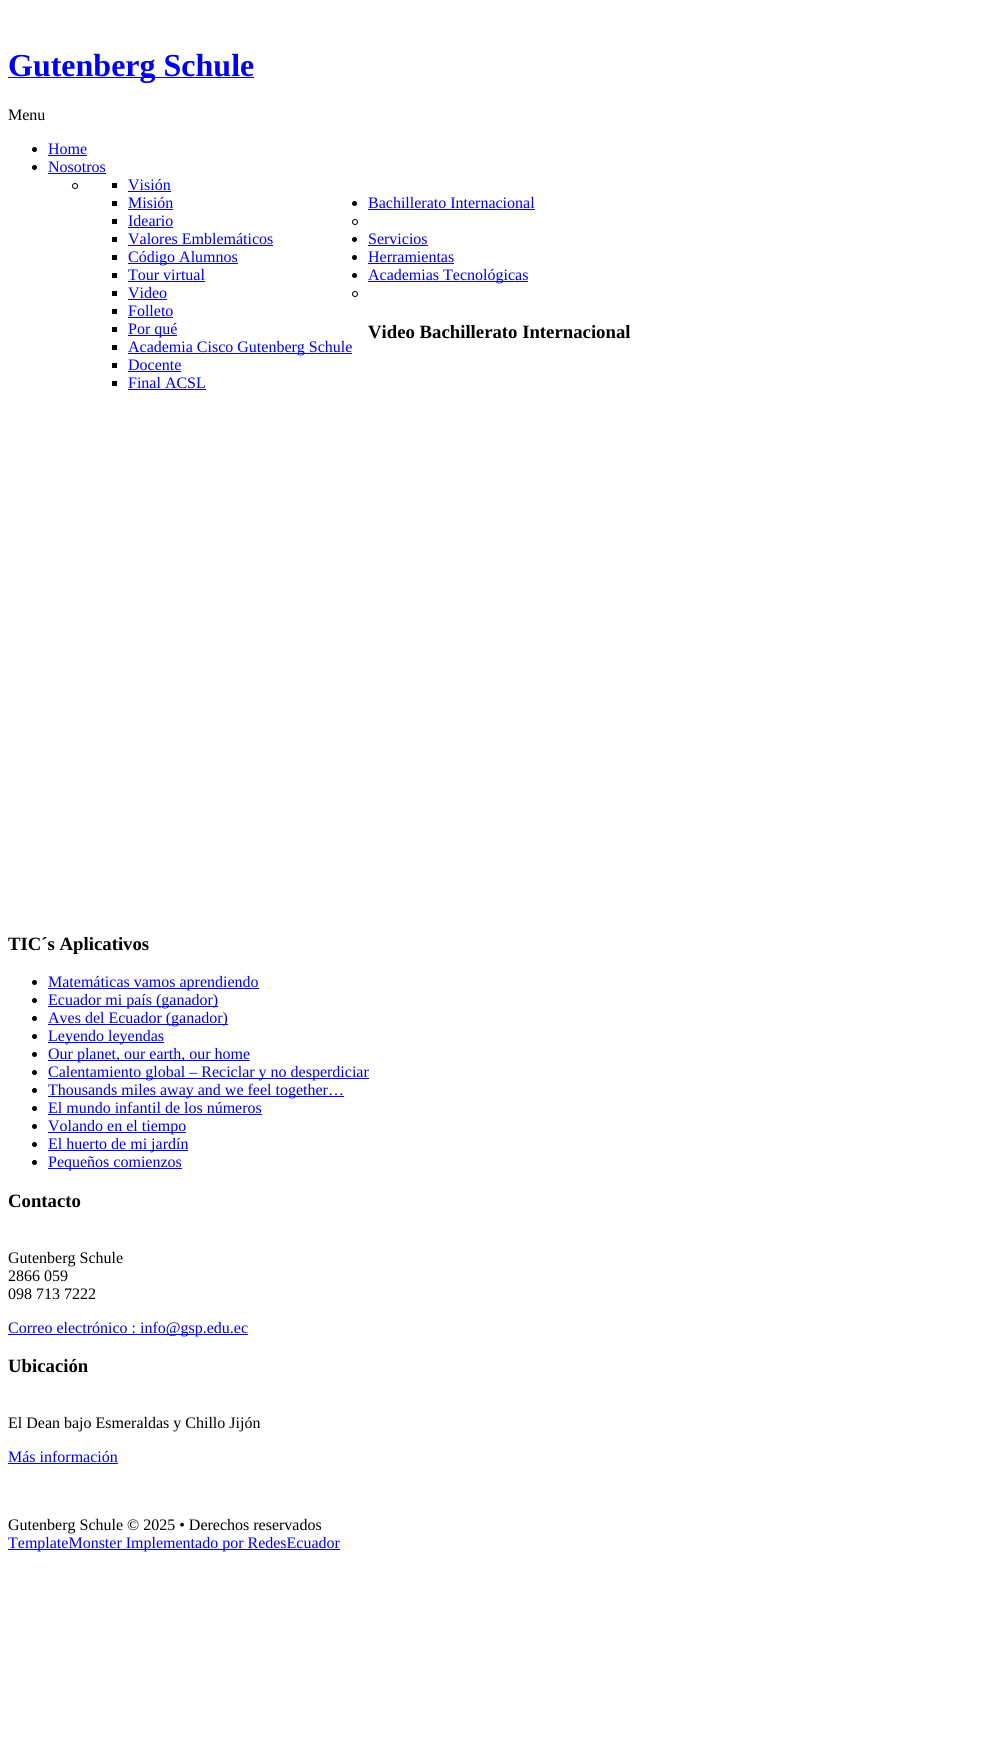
import math
import cairo



def draw(context):
    context.set_source_rgb(1, 1, 1)
    context.paint()
    context.set_source_rgb(0, 0, 238 / 255)
    context.rectangle(8, 77, 246, 1)
    context.fill()
    context.set_source_rgb(0, 0, 0)
    context.arc(34.5, 149.5, 2.5, 0, 2 * math.pi)
    context.fill()
    context.set_source_rgb(0, 0, 238 / 255)
    context.rectangle(48, 155, 39, 1)
    context.fill()
    context.set_source_rgb(0, 0, 0)
    context.arc(34.5, 167.5, 2.5, 0, 2 * math.pi)
    context.fill()
    context.set_source_rgb(0, 0, 238 / 255)
    context.rectangle(48, 173, 58, 1)
    context.fill()
    context.arc(75, 186, 2.5, 0, 2 * math.pi)
    context.set_source_rgb(0, 0, 0)
    context.set_line_width(1)
    context.stroke()
    context.rectangle(112, 183, 5, 5)
    context.fill()
    context.set_source_rgb(0, 0, 238 / 255)
    context.rectangle(128, 191, 43, 1)
    context.fill()
    context.set_source_rgb(0, 0, 0)
    context.rectangle(112, 201, 5, 5)
    context.fill()
    context.set_source_rgb(0, 0, 238 / 255)
    context.rectangle(128, 209, 45, 1)
    context.fill()
    context.set_source_rgb(0, 0, 0)
    context.rectangle(112, 219, 5, 5)
    context.fill()
    context.set_source_rgb(0, 0, 238 / 255)
    context.rectangle(128, 227, 45, 1)
    context.fill()
    context.set_source_rgb(0, 0, 0)
    context.rectangle(112, 237, 5, 5)
    context.fill()
    context.set_source_rgb(0, 0, 238 / 255)
    context.rectangle(128, 245, 145, 1)
    context.fill()
    context.set_source_rgb(0, 0, 0)
    context.rectangle(112, 255, 5, 5)
    context.fill()
    context.set_source_rgb(0, 0, 238 / 255)
    context.rectangle(128, 263, 110, 1)
    context.fill()
    context.set_source_rgb(0, 0, 0)
    context.rectangle(112, 273, 5, 5)
    context.fill()
    context.set_source_rgb(0, 0, 238 / 255)
    context.rectangle(128, 281, 77, 1)
    context.fill()
    context.set_source_rgb(0, 0, 0)
    context.arc(354.5, 203.5, 2.5, 0, 2 * math.pi)
    context.fill()
    context.set_source_rgb(0, 0, 238 / 255)
    context.rectangle(368, 209, 167, 1)
    context.fill()
    context.arc(355, 222, 2.5, 0, 2 * math.pi)
    context.set_source_rgb(0, 0, 0)
    context.stroke()
    context.rectangle(112, 291, 5, 5)
    context.fill()
    context.set_source_rgb(0, 0, 238 / 255)
    context.rectangle(128, 299, 39, 1)
    context.fill()
    context.set_source_rgb(0, 0, 0)
    context.rectangle(112, 309, 5, 5)
    context.fill()
    context.set_source_rgb(0, 0, 238 / 255)
    context.rectangle(128, 317, 45, 1)
    context.fill()
    context.set_source_rgb(0, 0, 0)
    context.arc(354.5, 239.5, 2.5, 0, 2 * math.pi)
    context.fill()
    context.set_source_rgb(0, 0, 238 / 255)
    context.rectangle(368, 245, 60, 1)
    context.fill()
    context.set_source_rgb(0, 0, 0)
    context.arc(354.5, 257.5, 2.5, 0, 2 * math.pi)
    context.fill()
    context.set_source_rgb(0, 0, 238 / 255)
    context.rectangle(368, 263, 86, 1)
    context.fill()
    context.set_source_rgb(0, 0, 0)
    context.arc(354.5, 275.5, 2.5, 0, 2 * math.pi)
    context.fill()
    context.set_source_rgb(0, 0, 238 / 255)
    context.rectangle(368, 281, 160, 1)
    context.fill()
    context.arc(355, 294, 2.5, 0, 2 * math.pi)
    context.set_source_rgb(0, 0, 0)
    context.stroke()
    context.rectangle(112, 327, 5, 5)
    context.fill()
    context.set_source_rgb(0, 0, 238 / 255)
    context.rectangle(128, 335, 49, 1)
    context.fill()
    context.set_source_rgb(0, 0, 0)
    context.rectangle(112, 345, 5, 5)
    context.fill()
    context.set_source_rgb(0, 0, 238 / 255)
    context.rectangle(128, 353, 224, 1)
    context.fill()
    context.set_source_rgb(0, 0, 0)
    context.rectangle(112, 363, 5, 5)
    context.fill()
    context.set_source_rgb(0, 0, 238 / 255)
    context.rectangle(128, 371, 53, 1)
    context.fill()
    context.set_source_rgb(0, 0, 0)
    context.rectangle(112, 381, 5, 5)
    context.fill()
    context.set_source_rgb(0, 0, 238 / 255)
    context.rectangle(128, 389, 78, 1)
    context.fill()
    context.set_source_rgb(0, 0, 0)
    context.arc(34.5, 982.5, 2.5, 0, 2 * math.pi)
    context.fill()
    context.set_source_rgb(0, 0, 238 / 255)
    context.rectangle(48, 988, 211, 1)
    context.fill()
    context.set_source_rgb(0, 0, 0)
    context.arc(34.5, 1000.5, 2.5, 0, 2 * math.pi)
    context.fill()
    context.set_source_rgb(0, 0, 238 / 255)
    context.rectangle(48, 1006, 170, 1)
    context.fill()
    context.set_source_rgb(0, 0, 0)
    context.arc(34.5, 1018.5, 2.5, 0, 2 * math.pi)
    context.fill()
    context.set_source_rgb(0, 0, 238 / 255)
    context.rectangle(48, 1024, 180, 1)
    context.fill()
    context.set_source_rgb(0, 0, 0)
    context.arc(34.5, 1036.5, 2.5, 0, 2 * math.pi)
    context.fill()
    context.set_source_rgb(0, 0, 238 / 255)
    context.rectangle(48, 1042, 116, 1)
    context.fill()
    context.set_source_rgb(0, 0, 0)
    context.arc(34.5, 1054.5, 2.5, 0, 2 * math.pi)
    context.fill()
    context.set_source_rgb(0, 0, 238 / 255)
    context.rectangle(48, 1060, 202, 1)
    context.fill()
    context.set_source_rgb(0, 0, 0)
    context.arc(34.5, 1072.5, 2.5, 0, 2 * math.pi)
    context.fill()
    context.set_source_rgb(0, 0, 238 / 255)
    context.rectangle(48, 1078, 321, 1)
    context.fill()
    context.set_source_rgb(0, 0, 0)
    context.arc(34.5, 1090.5, 2.5, 0, 2 * math.pi)
    context.fill()
    context.set_source_rgb(0, 0, 238 / 255)
    context.rectangle(48, 1096, 296, 1)
    context.fill()
    context.set_source_rgb(0, 0, 0)
    context.arc(34.5, 1108.5, 2.5, 0, 2 * math.pi)
    context.fill()
    context.set_source_rgb(0, 0, 238 / 255)
    context.rectangle(48, 1114, 214, 1)
    context.fill()
    context.set_source_rgb(0, 0, 0)
    context.arc(34.5, 1126.5, 2.5, 0, 2 * math.pi)
    context.fill()
    context.set_source_rgb(0, 0, 238 / 255)
    context.rectangle(48, 1132, 138, 1)
    context.fill()
    context.set_source_rgb(0, 0, 0)
    context.arc(34.5, 1144.5, 2.5, 0, 2 * math.pi)
    context.fill()
    context.set_source_rgb(0, 0, 238 / 255)
    context.rectangle(48, 1150, 140, 1)
    context.fill()
    context.set_source_rgb(0, 0, 0)
    context.arc(34.5, 1162.5, 2.5, 0, 2 * math.pi)
    context.fill()
    context.set_source_rgb(0, 0, 238 / 255)
    context.rectangle(48, 1168, 134, 1)
    context.fill()
    context.rectangle(8, 1334, 240, 1)
    context.fill()
    context.rectangle(8, 1463, 110, 1)
    context.fill()
    context.rectangle(8, 1549, 332, 1)
    context.fill()
    context.select_font_face("Liberation Serif", cairo.FontSlant.NORMAL, cairo.FontWeight.BOLD)
    context.set_font_size(32)
    context.move_to(8, 76)
    context.show_text("Gutenberg Schule")
    context.select_font_face("Liberation Serif")
    context.set_font_size(16)
    context.set_source_rgb(0, 0, 0)
    context.move_to(8, 120)
    context.show_text("Menu")
    context.set_source_rgb(0, 0, 238 / 255)
    context.move_to(48, 154)
    context.show_text("Home")
    context.move_to(48, 172)
    context.show_text("Nosotros")
    context.move_to(128, 190)
    context.show_text("Visión")
    context.move_to(128, 208)
    context.show_text("Misión")
    context.move_to(128, 226)
    context.show_text("Ideario")
    context.move_to(128, 244)
    context.show_text("Valores Emblemáticos")
    context.move_to(128, 262)
    context.show_text("Código Alumnos")
    context.move_to(128, 280)
    context.show_text("Tour virtual")
    context.move_to(368, 208)
    context.show_text("Bachillerato Internacional")
    context.move_to(128, 298)
    context.show_text("Video")
    context.move_to(128, 316)
    context.show_text("Folleto")
    context.move_to(368, 244)
    context.show_text("Servicios")
    context.move_to(368, 262)
    context.show_text("Herramientas")
    context.move_to(368, 280)
    context.show_text("Academias Tecnológicas")
    context.move_to(128, 334)
    context.show_text("Por qué")
    context.move_to(128, 352)
    context.show_text("Academia Cisco Gutenberg Schule")
    context.move_to(128, 370)
    context.show_text("Docente")
    context.move_to(128, 388)
    context.show_text("Final ACSL")
    context.select_font_face("Liberation Serif", cairo.FontSlant.NORMAL, cairo.FontWeight.BOLD)
    context.set_font_size(18.75)
    context.set_source_rgb(0, 0, 0)
    context.move_to(368, 338)
    context.show_text("Video Bachillerato Internacional")
    context.move_to(8, 950)
    context.show_text("TIC´s Aplicativos")
    context.select_font_face("Liberation Serif")
    context.set_font_size(16)
    context.set_source_rgb(0, 0, 238 / 255)
    context.move_to(48, 987)
    context.show_text("Matemáticas vamos aprendiendo")
    context.move_to(48, 1005)
    context.show_text("Ecuador mi país (ganador)")
    context.move_to(48, 1023)
    context.show_text("Aves del Ecuador (ganador)")
    context.move_to(48, 1041)
    context.show_text("Leyendo leyendas")
    context.move_to(48, 1059)
    context.show_text("Our planet, our earth, our home")
    context.move_to(48, 1077)
    context.show_text("Calentamiento global – Reciclar y no desperdiciar")
    context.move_to(48, 1095)
    context.show_text("Thousands miles away and we feel together…")
    context.move_to(48, 1113)
    context.show_text("El mundo infantil de los números")
    context.move_to(48, 1131)
    context.show_text("Volando en el tiempo")
    context.move_to(48, 1149)
    context.show_text("El huerto de mi jardín")
    context.move_to(48, 1167)
    context.show_text("Pequeños comienzos")
    context.select_font_face("Liberation Serif", cairo.FontSlant.NORMAL, cairo.FontWeight.BOLD)
    context.set_font_size(18.75)
    context.set_source_rgb(0, 0, 0)
    context.move_to(8, 1207)
    context.show_text("Contacto")
    context.select_font_face("Liberation Serif")
    context.set_font_size(16)
    context.move_to(8, 1263)
    context.show_text("Gutenberg Schule")
    context.move_to(8, 1281)
    context.show_text("2866 059")
    context.move_to(8, 1299)
    context.show_text("098 713 7222")
    context.set_source_rgb(0, 0, 238 / 255)
    context.move_to(8, 1333)
    context.show_text("Correo electrónico : info@gsp.edu.ec")
    context.select_font_face("Liberation Serif", cairo.FontSlant.NORMAL, cairo.FontWeight.BOLD)
    context.set_font_size(18.75)
    context.set_source_rgb(0, 0, 0)
    context.move_to(8, 1372)
    context.show_text("Ubicación")
    context.select_font_face("Liberation Serif")
    context.set_font_size(16)
    context.move_to(8, 1428)
    context.show_text("El Dean bajo Esmeraldas y Chillo Jijón")
    context.set_source_rgb(0, 0, 238 / 255)
    context.move_to(8, 1462)
    context.show_text("Más información")
    context.set_source_rgb(0, 0, 0)
    context.move_to(8, 1530)
    context.show_text("Gutenberg Schule © 2025 • Derechos reservados")
    context.set_source_rgb(0, 0, 238 / 255)
    context.move_to(8, 1548)
    context.show_text("TemplateMonster Implementado por RedesEcuador")


surface = cairo.ImageSurface(cairo.Format.RGB24, 1005, 1742)
context = cairo.Context(surface)
options = cairo.FontOptions()
options.set_hint_metrics(cairo.HintMetrics.OFF)
options.set_hint_style(cairo.HintStyle.NONE)
context.set_font_options(options)
context.set_miter_limit(4)
draw(context)
surface.write_to_png("out.png")
